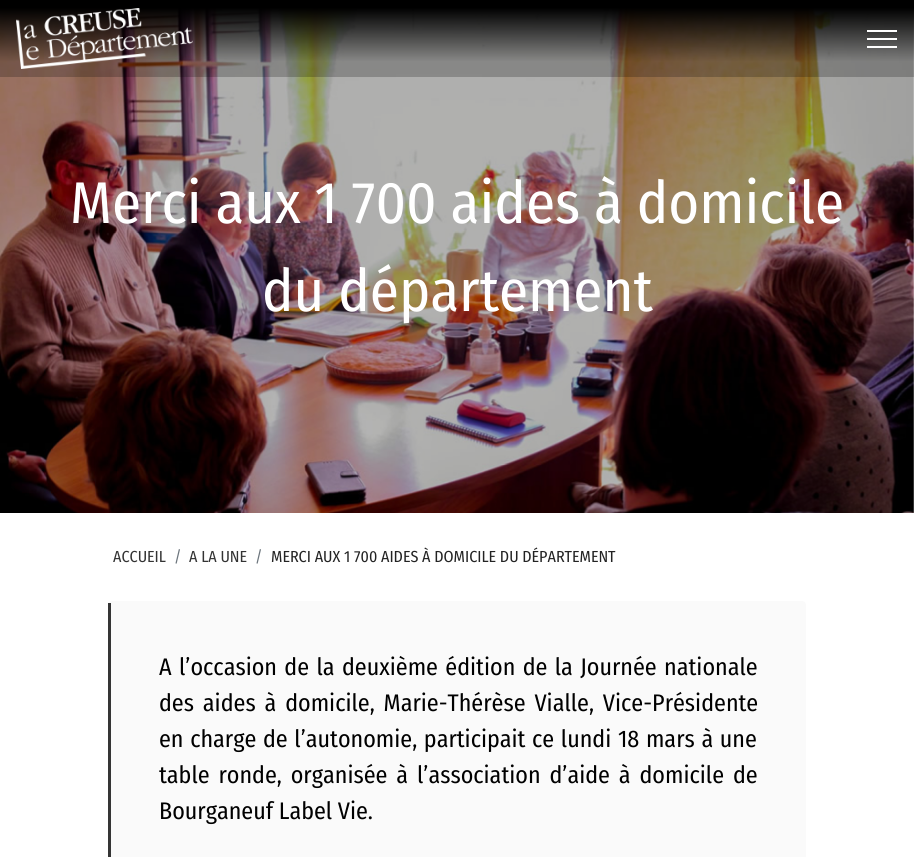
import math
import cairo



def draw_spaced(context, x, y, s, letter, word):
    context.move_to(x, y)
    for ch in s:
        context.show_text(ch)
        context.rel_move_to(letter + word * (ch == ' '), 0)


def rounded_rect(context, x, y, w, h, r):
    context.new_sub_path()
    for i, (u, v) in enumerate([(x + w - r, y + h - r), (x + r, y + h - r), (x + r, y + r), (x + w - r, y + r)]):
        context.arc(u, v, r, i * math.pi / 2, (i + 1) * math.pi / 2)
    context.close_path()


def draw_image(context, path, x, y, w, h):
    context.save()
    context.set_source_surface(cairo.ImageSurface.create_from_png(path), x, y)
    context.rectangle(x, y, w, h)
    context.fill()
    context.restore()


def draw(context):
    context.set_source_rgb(1, 1, 1)
    context.paint()
    draw_image(context, "images/2.png", 0, 8, 914, 505)
    gradient = cairo.LinearGradient(457, 77, 457, 0)
    gradient.add_color_stop_rgba(0.2, 0, 0, 0, 0.22)
    gradient.add_color_stop_rgba(0.9, 0, 0, 0, 1)
    context.set_source(gradient)
    context.rectangle(0, 0, 914, 77)
    context.fill()
    draw_image(context, "images/1.png", 16, 8, 177, 61)
    context.set_source_rgb(1, 1, 1)
    context.rectangle(867, 30, 30, 2)
    context.fill()
    context.rectangle(867, 38, 30, 2)
    context.fill()
    context.rectangle(867, 46, 30, 2)
    context.fill()
    context.set_source_rgb(250 / 255, 250 / 255, 250 / 255)
    rounded_rect(context, 108, 601, 698, 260, 4)
    context.fill()
    context.set_source_rgb(53 / 255, 53 / 255, 53 / 255)
    context.rectangle(108, 603, 3, 254)
    context.fill()
    context.select_font_face("Fira Sans Condensed")
    context.set_font_size(58.9)
    context.set_source_rgb(1, 1, 1)
    context.move_to(70, 223)
    context.show_text("Merci aux 1 700 aides à domicile")
    context.move_to(262, 311)
    context.show_text("du département")
    context.set_font_size(16)
    context.set_source_rgb(51 / 255, 51 / 255, 51 / 255)
    context.move_to(113, 562)
    context.show_text("ACCUEIL")
    context.set_source_rgb(108 / 255, 117 / 255, 125 / 255)
    context.move_to(174, 562)
    context.show_text("/")
    context.set_source_rgb(51 / 255, 51 / 255, 51 / 255)
    context.move_to(189, 562)
    context.show_text("A LA UNE")
    context.set_source_rgb(108 / 255, 117 / 255, 125 / 255)
    context.move_to(255, 562)
    context.show_text("/")
    context.set_source_rgb(35 / 255, 35 / 255, 35 / 255)
    context.move_to(271, 562)
    context.show_text("MERCI AUX 1 700 AIDES À DOMICILE DU DÉPARTEMENT")
    context.set_font_size(24)
    context.set_source_rgb(0, 0, 0)
    draw_spaced(context, 159, 675, "A l’occasion de la deuxième édition de la Journée nationale", 0, 1.75)
    draw_spaced(context, 159, 711, "des aides à domicile, Marie-Thérèse Vialle, Vice-Présidente", 0, 3.25)
    draw_spaced(context, 159, 747, "en charge de l’autonomie, participait ce lundi 18 mars à une", 0, 1)
    draw_spaced(context, 159, 783, "table ronde, organisée à l’association d’aide à domicile de", 0, 3.25)
    context.move_to(159, 819)
    context.show_text("Bourganeuf Label Vie.")


surface = cairo.ImageSurface(cairo.Format.RGB24, 914, 857)
context = cairo.Context(surface)
options = cairo.FontOptions()
options.set_hint_metrics(cairo.HintMetrics.OFF)
options.set_hint_style(cairo.HintStyle.NONE)
context.set_font_options(options)
context.set_miter_limit(4)
draw(context)
surface.write_to_png("out.png")
